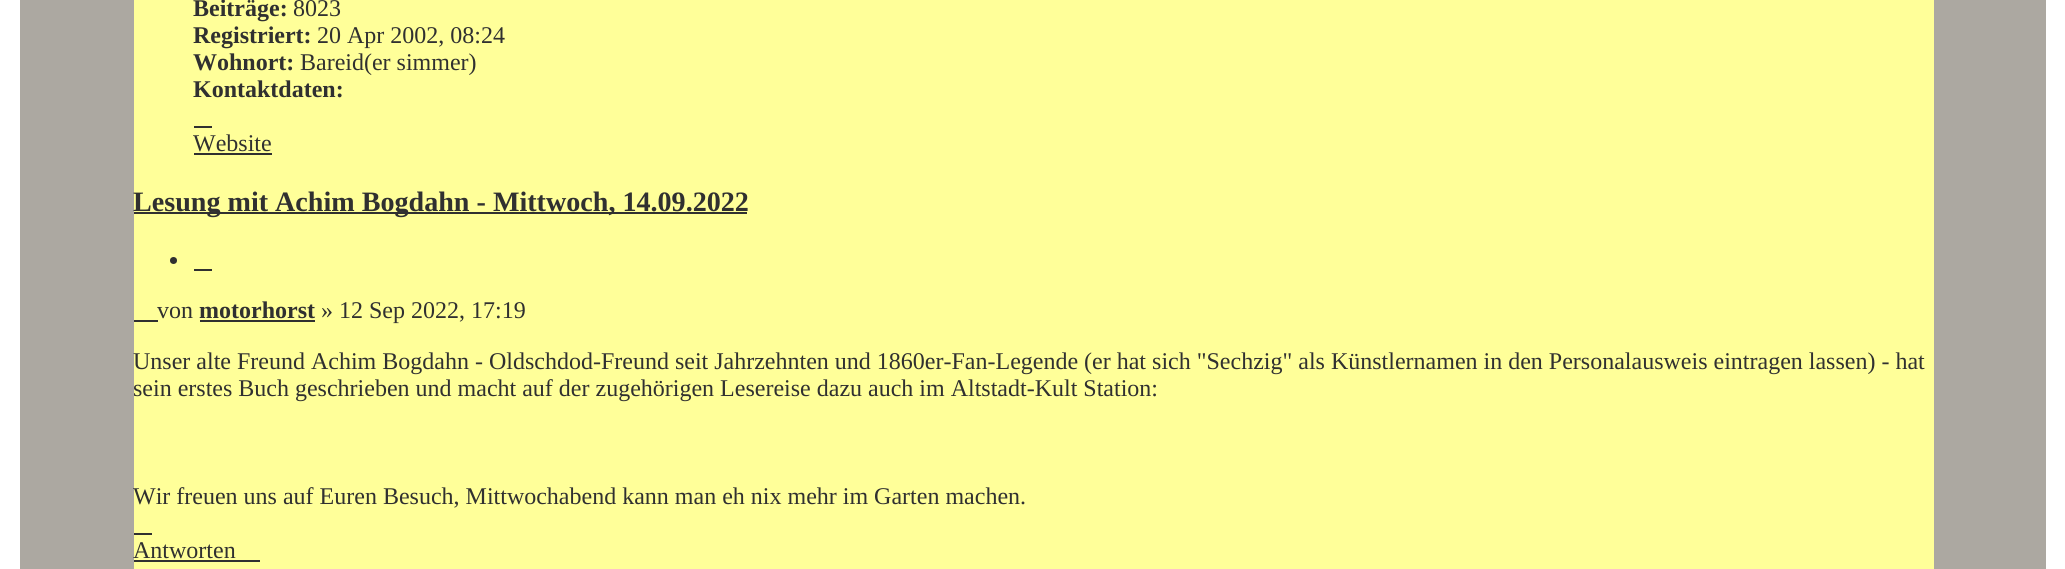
import math
import cairo



def draw(context):
    context.set_source_rgb(1, 1, 1)
    context.paint()
    context.set_source_rgb(172 / 255, 168 / 255, 161 / 255)
    context.rectangle(20, 0, 2026, 569)
    context.fill()
    context.set_source_rgb(1, 1, 153 / 255)
    context.rectangle(134, 0, 1800, 569)
    context.fill()
    context.set_source_rgb(48 / 255, 48 / 255, 48 / 255)
    context.rectangle(194, 126, 18, 2)
    context.fill()
    context.rectangle(194, 153, 78, 2)
    context.fill()
    context.rectangle(134, 212, 613, 2)
    context.fill()
    context.arc(173.5, 260.5, 3.5, 0, 2 * math.pi)
    context.fill()
    context.rectangle(194, 269, 18, 2)
    context.fill()
    context.rectangle(200, 320, 115, 2)
    context.fill()
    context.rectangle(134, 320, 24, 2)
    context.fill()
    context.rectangle(134, 533, 18, 2)
    context.fill()
    context.rectangle(134, 560, 126, 2)
    context.fill()
    context.select_font_face("Liberation Serif", cairo.FontSlant.NORMAL, cairo.FontWeight.BOLD)
    context.set_font_size(24)
    context.move_to(193, 16)
    context.show_text("Beiträge:")
    context.select_font_face("Liberation Serif")
    context.move_to(293, 16)
    context.show_text("8023")
    context.select_font_face("Liberation Serif", cairo.FontSlant.NORMAL, cairo.FontWeight.BOLD)
    context.move_to(193, 43)
    context.show_text("Registriert:")
    context.select_font_face("Liberation Serif")
    context.move_to(317, 43)
    context.show_text("20 Apr 2002, 08:24")
    context.select_font_face("Liberation Serif", cairo.FontSlant.NORMAL, cairo.FontWeight.BOLD)
    context.move_to(193, 70)
    context.show_text("Wohnort:")
    context.select_font_face("Liberation Serif")
    context.move_to(300, 70)
    context.show_text("Bareid(er simmer)")
    context.select_font_face("Liberation Serif", cairo.FontSlant.NORMAL, cairo.FontWeight.BOLD)
    context.move_to(193, 97)
    context.show_text("Kontaktdaten:")
    context.select_font_face("Liberation Serif")
    context.move_to(193, 151)
    context.show_text("Website")
    context.select_font_face("Liberation Serif", cairo.FontSlant.NORMAL, cairo.FontWeight.BOLD)
    context.set_font_size(28.1)
    context.move_to(133, 211)
    context.show_text("Lesung mit Achim Bogdahn - Mittwoch, 14.09.2022")
    context.select_font_face("Liberation Serif")
    context.set_font_size(24)
    context.move_to(157, 318)
    context.show_text("von")
    context.select_font_face("Liberation Serif", cairo.FontSlant.NORMAL, cairo.FontWeight.BOLD)
    context.move_to(199, 318)
    context.show_text("motorhorst")
    context.select_font_face("Liberation Serif")
    context.move_to(321, 318)
    context.show_text("» 12 Sep 2022, 17:19")
    context.move_to(133, 369)
    context.show_text("Unser alte Freund Achim Bogdahn - Oldschdod-Freund seit Jahrzehnten und 1860er-Fan-Legende (er hat sich \"Sechzig\" als Künstlernamen in den Personalausweis eintragen lassen) - hat")
    context.move_to(133, 396)
    context.show_text("sein erstes Buch geschrieben und macht auf der zugehörigen Lesereise dazu auch im Altstadt-Kult Station:")
    context.move_to(133, 504)
    context.show_text("Wir freuen uns auf Euren Besuch, Mittwochabend kann man eh nix mehr im Garten machen.")
    context.move_to(133, 558)
    context.show_text("Antworten")


surface = cairo.ImageSurface(cairo.Format.RGB24, 2065, 569)
context = cairo.Context(surface)
options = cairo.FontOptions()
options.set_hint_metrics(cairo.HintMetrics.OFF)
options.set_hint_style(cairo.HintStyle.NONE)
context.set_font_options(options)
context.set_miter_limit(4)
draw(context)
surface.write_to_png("out.png")
